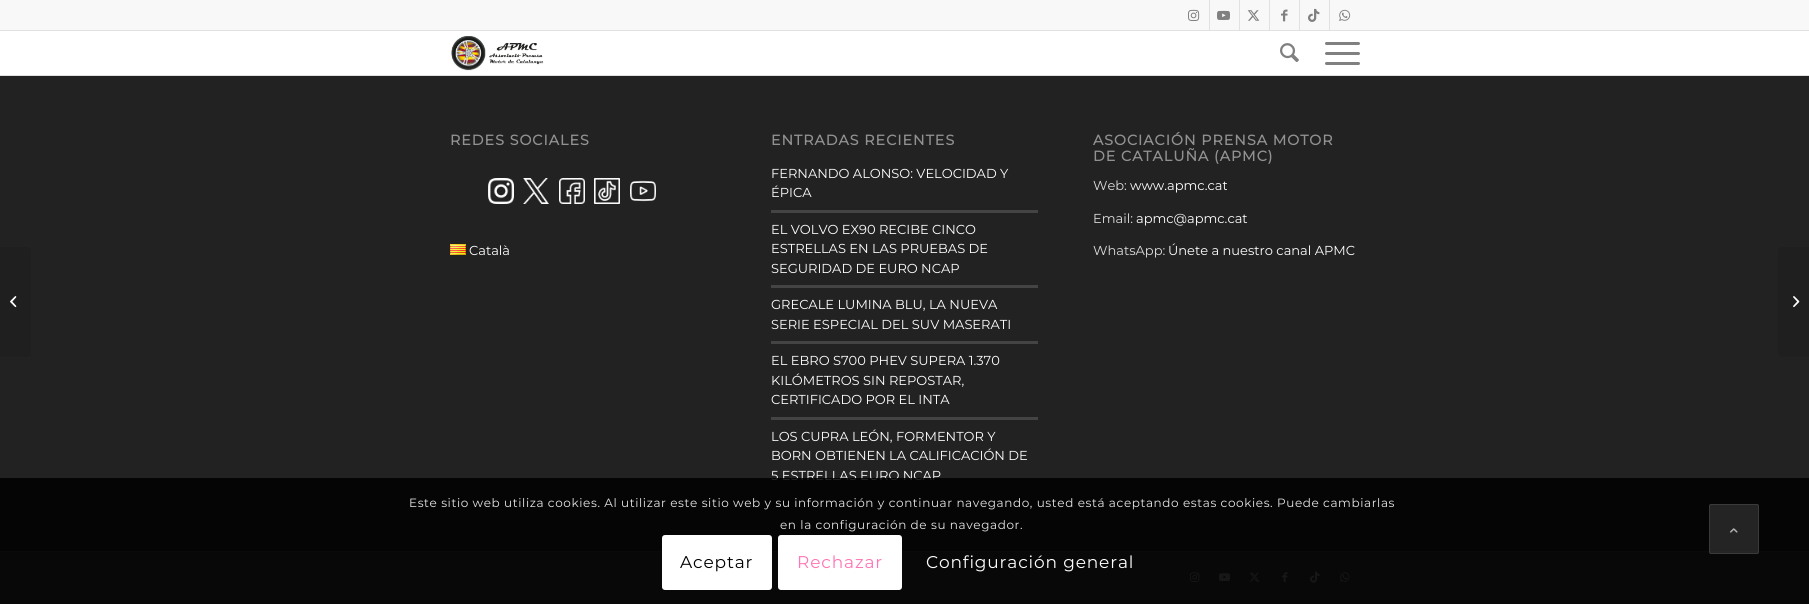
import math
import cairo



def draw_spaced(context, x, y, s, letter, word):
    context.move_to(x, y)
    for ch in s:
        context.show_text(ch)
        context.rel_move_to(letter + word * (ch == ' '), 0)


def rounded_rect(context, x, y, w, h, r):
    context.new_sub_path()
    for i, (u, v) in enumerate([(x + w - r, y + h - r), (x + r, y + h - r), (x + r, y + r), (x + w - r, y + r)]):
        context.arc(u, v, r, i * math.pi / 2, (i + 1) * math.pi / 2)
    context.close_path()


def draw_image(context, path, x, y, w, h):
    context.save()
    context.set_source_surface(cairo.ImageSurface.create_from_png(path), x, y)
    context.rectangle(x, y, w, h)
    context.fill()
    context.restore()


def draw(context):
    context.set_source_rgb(1, 1, 1)
    context.paint()
    context.set_source_rgb(248 / 255, 248 / 255, 248 / 255)
    context.rectangle(0, 0, 1809, 30)
    context.fill()
    context.set_source_rgb(225 / 255, 225 / 255, 225 / 255)
    context.rectangle(0, 30, 1809, 1)
    context.fill()
    context.rectangle(1209, 0, 1, 30)
    context.fill()
    draw_image(context, "images/1.png", 1188, 9, 12, 12)
    context.rectangle(1239, 0, 1, 30)
    context.fill()
    draw_image(context, "images/2.png", 1217, 10, 13, 10)
    context.rectangle(1269, 0, 1, 30)
    context.fill()
    draw_image(context, "images/3.png", 1247, 10, 13, 11)
    context.rectangle(1299, 0, 1, 30)
    context.fill()
    draw_image(context, "images/4.png", 1281, 9, 7, 13)
    context.rectangle(1329, 0, 1, 30)
    context.fill()
    draw_image(context, "images/5.png", 1308, 8, 12, 14)
    draw_image(context, "images/6.png", 1339, 9, 12, 12)
    context.rectangle(0, 75, 1809, 1)
    context.fill()
    draw_image(context, "images/7.png", 451, 36, 93, 35)
    draw_image(context, "images/8.png", 1280, 43, 19, 20)
    context.set_source_rgb(128 / 255, 128 / 255, 128 / 255)
    rounded_rect(context, 1325, 52, 35, 3, 1.5)
    context.fill()
    rounded_rect(context, 1325, 42, 35, 3, 1.5)
    context.fill()
    rounded_rect(context, 1325, 62, 35, 3, 1.5)
    context.fill()
    context.set_source_rgb(34 / 255, 34 / 255, 34 / 255)
    context.rectangle(0, 76, 1809, 475)
    context.fill()
    context.set_source_rgb(31 / 255, 31 / 255, 31 / 255)
    context.new_path()
    context.move_to(0, 247)
    context.line_to(27, 247)
    context.curve_to(29, 247, 31, 249, 31, 251)
    context.line_to(31, 353)
    context.curve_to(31, 355, 29, 357, 27, 357)
    context.line_to(0, 357)
    context.close_path()
    context.fill()
    draw_image(context, "images/9.png", 10, 296, 7, 12)
    draw_image(context, "images/10.png", 488, 178, 26, 26)
    draw_image(context, "images/11.png", 523, 178, 26, 26)
    draw_image(context, "images/12.png", 559, 178, 26, 26)
    draw_image(context, "images/13.png", 594, 178, 26, 26)
    draw_image(context, "images/14.png", 630, 180, 26, 22)
    draw_image(context, "images/15.png", 450, 244, 16, 11)
    context.set_source_rgb(68 / 255, 68 / 255, 68 / 255)
    context.rectangle(771, 210, 267, 3)
    context.fill()
    context.rectangle(771, 285, 267, 3)
    context.fill()
    context.rectangle(771, 341, 267, 3)
    context.fill()
    context.rectangle(771, 417, 267, 3)
    context.fill()
    context.set_source_rgb(51 / 255, 51 / 255, 51 / 255)
    context.rectangle(0, 552, 1809, 52)
    context.fill()
    context.set_source_rgb(68 / 255, 68 / 255, 68 / 255)
    context.rectangle(0, 551, 1809, 1)
    context.fill()
    draw_image(context, "images/16.png", 1190, 572, 10, 10)
    draw_image(context, "images/17.png", 1219, 573, 11, 8)
    draw_image(context, "images/18.png", 1249, 572, 11, 10)
    draw_image(context, "images/19.png", 1282, 572, 6, 11)
    draw_image(context, "images/20.png", 1310, 571, 10, 12)
    draw_image(context, "images/21.png", 1340, 572, 10, 10)
    context.set_source_rgb(31 / 255, 31 / 255, 31 / 255)
    context.new_path()
    context.move_to(1782, 247)
    context.line_to(1809, 247)
    context.line_to(1809, 357)
    context.line_to(1782, 357)
    context.curve_to(1780, 357, 1778, 355, 1778, 353)
    context.line_to(1778, 251)
    context.curve_to(1778, 249, 1780, 247, 1782, 247)
    context.close_path()
    context.fill()
    draw_image(context, "images/22.png", 1793, 296, 7, 12)
    context.select_font_face("Montserrat", cairo.FontSlant.NORMAL, cairo.FontWeight.BOLD)
    context.set_font_size(14.25)
    context.set_source_rgb(145 / 255, 145 / 255, 145 / 255)
    draw_spaced(context, 450, 145, "REDES SOCIALES", 1, 0)
    context.select_font_face("Montserrat Thin")
    context.set_font_size(13)
    context.set_source_rgb(1, 1, 1)
    context.move_to(469, 255)
    context.show_text("Català")
    context.select_font_face("Montserrat", cairo.FontSlant.NORMAL, cairo.FontWeight.BOLD)
    context.set_font_size(14.25)
    context.set_source_rgb(145 / 255, 145 / 255, 145 / 255)
    draw_spaced(context, 771, 145, "ENTRADAS RECIENTES", 1, 0)
    context.select_font_face("Montserrat Thin")
    context.set_font_size(13)
    context.set_source_rgb(1, 1, 1)
    context.move_to(771, 178)
    context.show_text("FERNANDO ALONSO: VELOCIDAD Y")
    context.move_to(771, 197)
    context.show_text("ÉPICA")
    context.move_to(771, 234)
    context.show_text("EL VOLVO EX90 RECIBE CINCO")
    context.move_to(771, 253)
    context.show_text("ESTRELLAS EN LAS PRUEBAS DE")
    context.move_to(771, 273)
    context.show_text("SEGURIDAD DE EURO NCAP")
    context.move_to(771, 309)
    context.show_text("GRECALE LUMINA BLU, LA NUEVA")
    context.move_to(771, 329)
    context.show_text("SERIE ESPECIAL DEL SUV MASERATI")
    context.move_to(771, 365)
    context.show_text("EL EBRO S700 PHEV SUPERA 1.370")
    context.move_to(771, 385)
    context.show_text("KILÓMETROS SIN REPOSTAR,")
    context.move_to(771, 404)
    context.show_text("CERTIFICADO POR EL INTA")
    context.move_to(771, 441)
    context.show_text("LOS CUPRA LEÓN, FORMENTOR Y")
    context.move_to(771, 460)
    context.show_text("BORN OBTIENEN LA CALIFICACIÓN DE")
    context.move_to(771, 480)
    context.show_text("5 ESTRELLAS EURO NCAP")
    context.select_font_face("Montserrat", cairo.FontSlant.NORMAL, cairo.FontWeight.BOLD)
    context.set_font_size(14.25)
    context.set_source_rgb(145 / 255, 145 / 255, 145 / 255)
    draw_spaced(context, 1093, 145, "ASOCIACIÓN PRENSA MOTOR", 1, 0)
    draw_spaced(context, 1093, 161, "DE CATALUÑA (APMC)", 1, 0)
    context.select_font_face("Montserrat Thin")
    context.set_font_size(13)
    context.set_source_rgb(221 / 255, 221 / 255, 221 / 255)
    context.move_to(1093, 190)
    context.show_text("Web:")
    context.set_source_rgb(1, 1, 1)
    context.move_to(1130, 190)
    context.show_text("www.apmc.cat")
    context.set_source_rgb(221 / 255, 221 / 255, 221 / 255)
    context.move_to(1093, 223)
    context.show_text("Email:")
    context.set_source_rgb(1, 1, 1)
    context.move_to(1136, 223)
    context.show_text("apmc@apmc.cat")
    context.set_source_rgb(221 / 255, 221 / 255, 221 / 255)
    context.move_to(1093, 255)
    context.show_text("WhatsApp:")
    context.set_source_rgb(1, 1, 1)
    context.move_to(1168, 255)
    context.show_text("Únete a nuestro canal APMC")
    context.set_source_rgba(0, 0, 0, 0.85)
    context.rectangle(0, 478, 1809, 126)
    context.fill()
    context.set_font_size(12)
    context.set_source_rgb(230 / 255, 230 / 255, 230 / 255)
    draw_spaced(context, 409, 507, "Este sitio web utiliza cookies. Al utilizar este sitio web y su información y continuar navegando, usted está aceptando estas cookies. Puede cambiarlas", 0.6, 0)
    draw_spaced(context, 780, 529, "en la configuración de su navegador.", 0.6, 0)
    context.set_source_rgb(1, 1, 1)
    rounded_rect(context, 662, 535, 110, 55, 3)
    context.fill()
    context.set_font_size(17)
    context.set_source_rgb(0, 0, 0)
    draw_spaced(context, 680, 568, "Aceptar", 0.85, 0)
    context.set_source_rgb(1, 1, 1)
    rounded_rect(context, 778, 535, 124, 55, 3)
    context.fill()
    context.set_source_rgb(1, 117 / 255, 181 / 255)
    draw_spaced(context, 797, 568, "Rechazar", 0.85, 0)
    context.set_source_rgb(1, 1, 1)
    draw_spaced(context, 926, 568, "Configuración general", 0.85, 0)
    context.set_source_rgba(51 / 255, 51 / 255, 51 / 255, 0.7)
    rounded_rect(context, 1709, 504, 50, 50, 2)
    context.fill()
    rounded_rect(context, 1709.5, 504.5, 49, 49, 1.5)
    context.set_source_rgba(68 / 255, 68 / 255, 68 / 255, 0.7)
    context.set_line_width(1)
    context.stroke()
    draw_image(context, "images/23.png", 1730, 528, 8, 5)


surface = cairo.ImageSurface(cairo.Format.RGB24, 1809, 604)
context = cairo.Context(surface)
options = cairo.FontOptions()
options.set_hint_metrics(cairo.HintMetrics.OFF)
options.set_hint_style(cairo.HintStyle.NONE)
context.set_font_options(options)
context.set_miter_limit(4)
draw(context)
surface.write_to_png("out.png")
